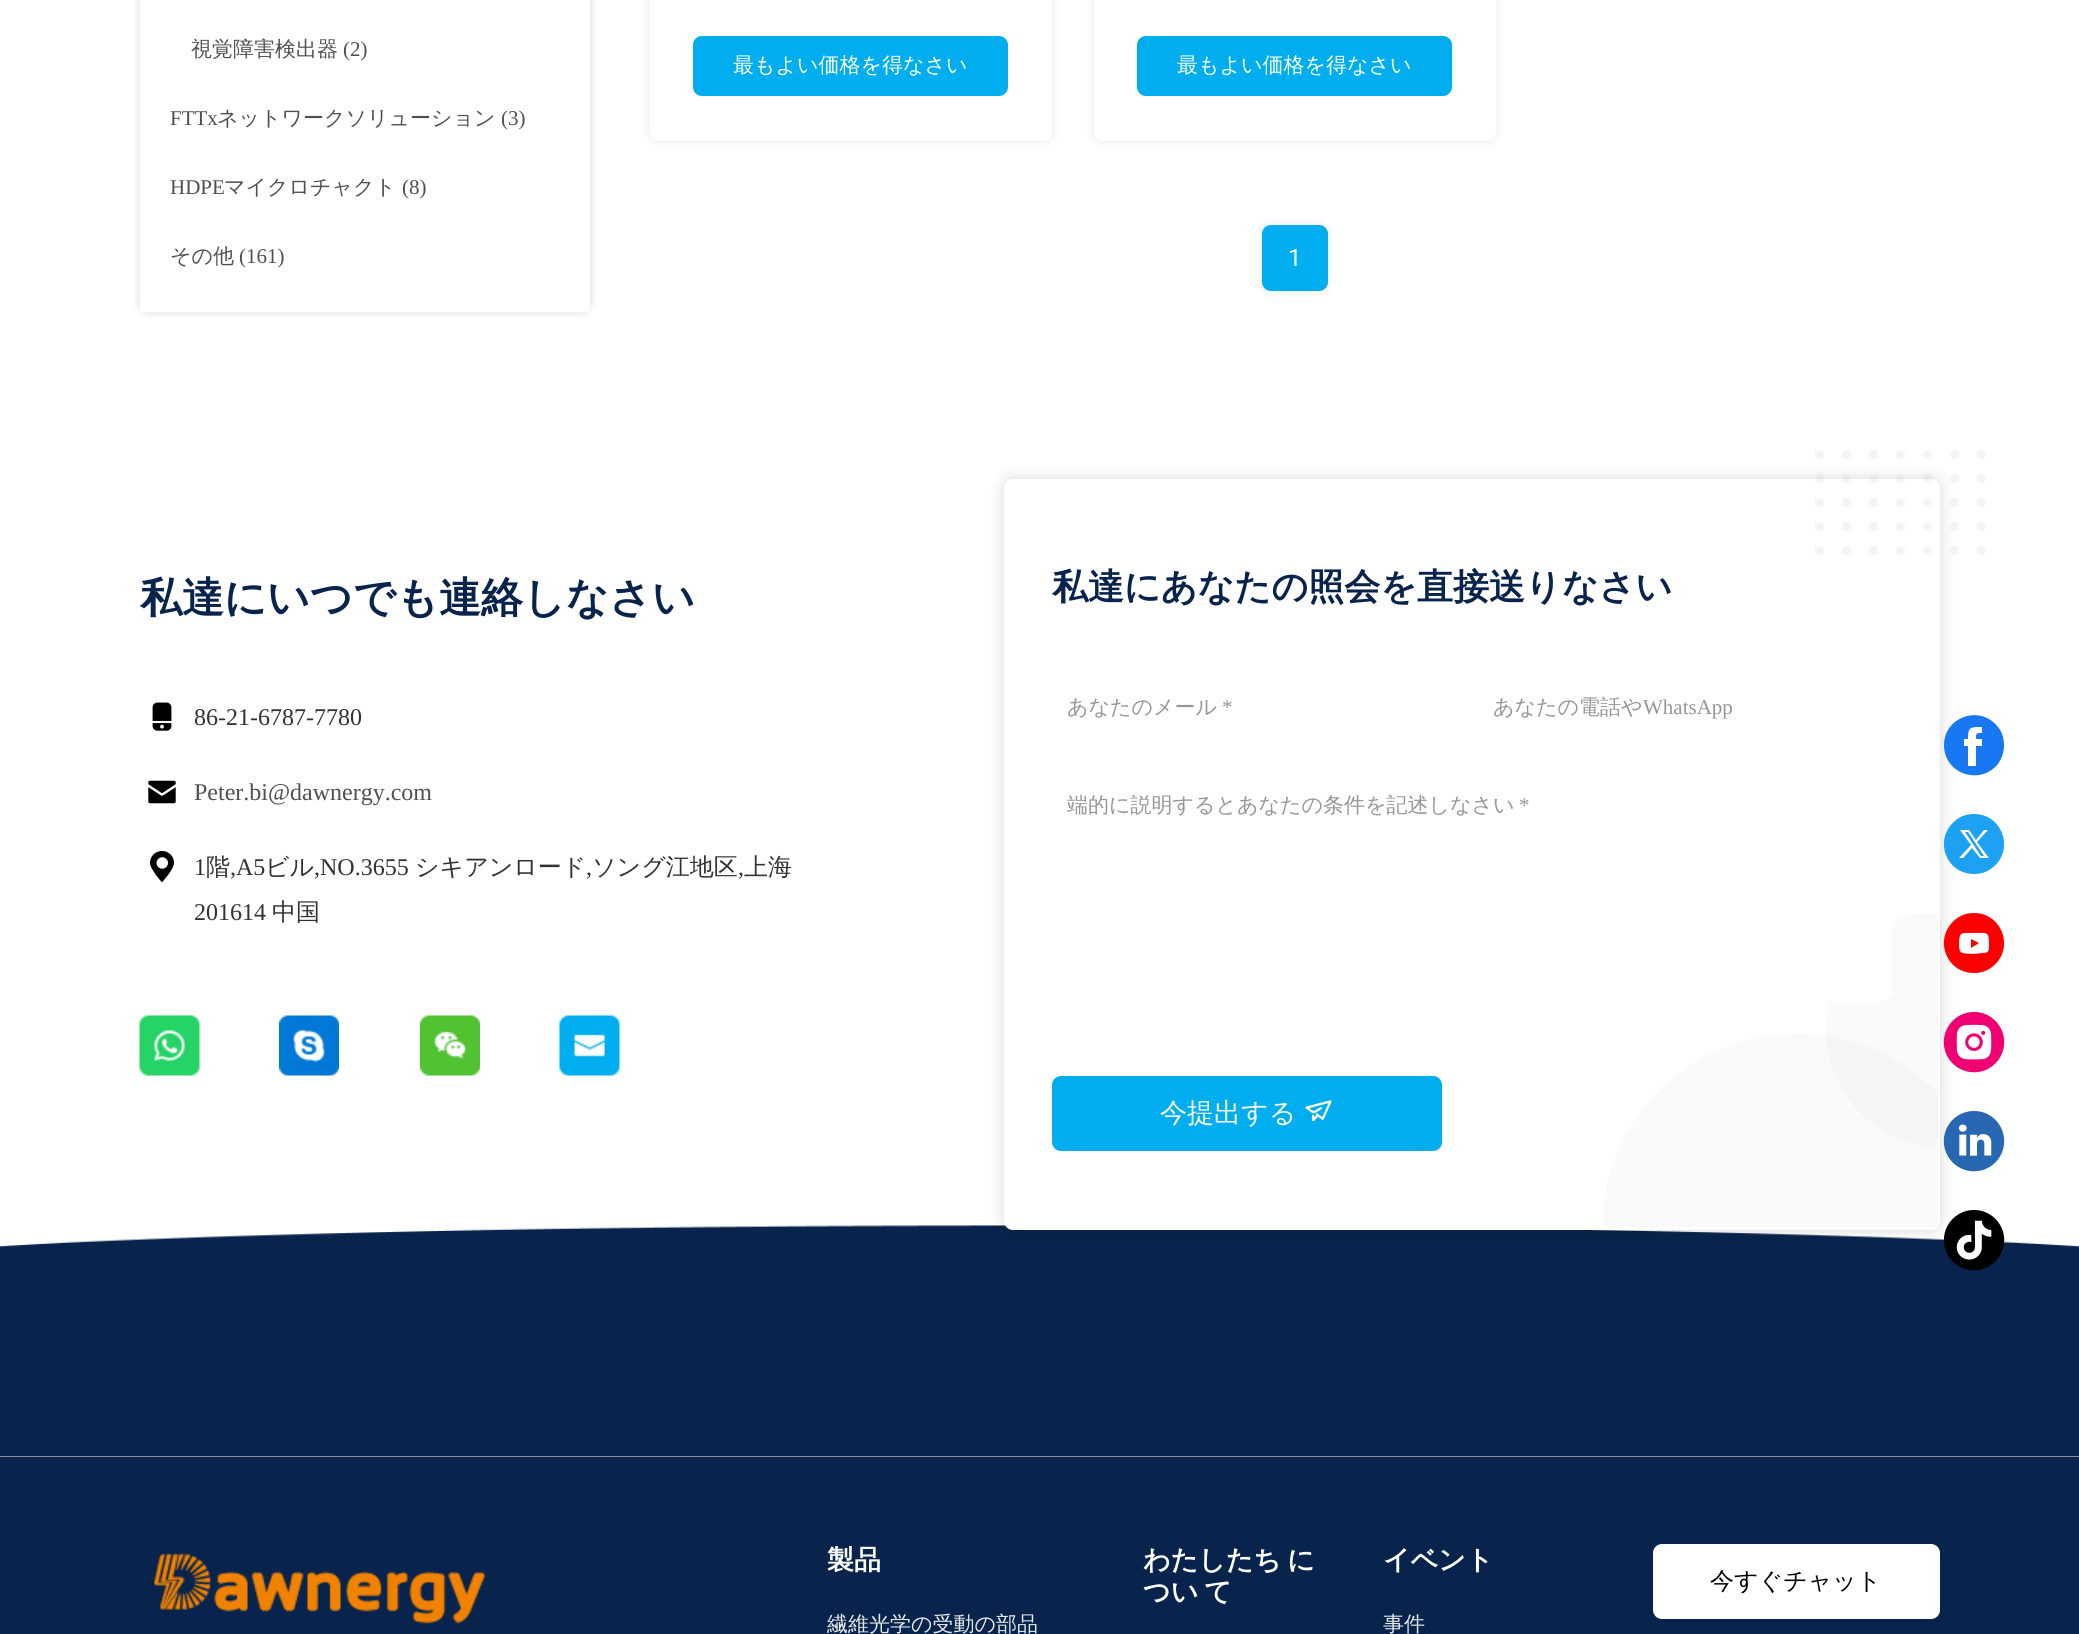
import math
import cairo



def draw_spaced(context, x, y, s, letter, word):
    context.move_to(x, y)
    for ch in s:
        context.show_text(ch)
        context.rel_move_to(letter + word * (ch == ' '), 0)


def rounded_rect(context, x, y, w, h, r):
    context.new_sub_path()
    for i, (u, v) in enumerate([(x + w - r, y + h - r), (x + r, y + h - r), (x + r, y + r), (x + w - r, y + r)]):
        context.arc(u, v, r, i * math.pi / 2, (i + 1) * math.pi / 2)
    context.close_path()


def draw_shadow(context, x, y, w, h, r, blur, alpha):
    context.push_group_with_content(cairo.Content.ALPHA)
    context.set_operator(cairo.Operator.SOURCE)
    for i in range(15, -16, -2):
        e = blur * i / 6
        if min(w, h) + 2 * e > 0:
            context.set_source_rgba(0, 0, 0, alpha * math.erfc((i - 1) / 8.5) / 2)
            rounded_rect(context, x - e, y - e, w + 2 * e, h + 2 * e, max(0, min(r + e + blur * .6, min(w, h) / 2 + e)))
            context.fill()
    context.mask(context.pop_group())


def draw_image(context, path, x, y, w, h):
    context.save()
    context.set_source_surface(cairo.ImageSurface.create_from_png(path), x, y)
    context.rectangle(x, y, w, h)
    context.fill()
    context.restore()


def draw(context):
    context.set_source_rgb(1, 1, 1)
    context.paint()
    context.set_source_rgb(0, 0, 0)
    draw_shadow(context, 140, -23, 450, 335, 9, 4.5, 0.15)
    context.set_source_rgb(1, 1, 1)
    context.rectangle(140, 0, 450, 312)
    context.fill()
    context.set_source_rgb(0, 0, 0)
    draw_shadow(context, 650, -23, 402, 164, 9, 4.5, 0.1)
    context.set_source_rgb(1, 1, 1)
    rounded_rect(context, 650, -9, 402, 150, 9)
    context.fill()
    context.set_source_rgb(0, 174 / 255, 239 / 255)
    rounded_rect(context, 693, 36, 315, 60, 9)
    context.fill()
    context.set_source_rgb(0, 0, 0)
    draw_shadow(context, 1094, -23, 402, 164, 9, 4.5, 0.1)
    context.set_source_rgb(1, 1, 1)
    rounded_rect(context, 1094, -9, 402, 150, 9)
    context.fill()
    context.set_source_rgb(0, 174 / 255, 239 / 255)
    rounded_rect(context, 1137, 36, 315, 60, 9)
    context.fill()
    context.set_source_rgb(0, 0, 0)
    draw_shadow(context, 1262, 225, 66, 66, 9, 4.5, 0.1)
    context.set_source_rgb(0, 174 / 255, 239 / 255)
    rounded_rect(context, 1262, 225, 66, 66, 9)
    context.fill()
    draw_image(context, "images/1.png", 0, 1225, 2079, 232)
    draw_image(context, "images/2.png", 152, 702, 20, 29)
    draw_image(context, "images/3.png", 148, 780, 28, 24)
    draw_image(context, "images/4.png", 150, 851, 24, 32)
    draw_image(context, "images/5.png", 139, 1015, 61, 61)
    draw_image(context, "images/6.png", 279, 1015, 60, 61)
    draw_image(context, "images/7.png", 420, 1015, 60, 61)
    draw_image(context, "images/8.png", 559, 1015, 61, 61)
    context.set_source_rgb(0, 0, 0)
    draw_shadow(context, 1004, 479, 936, 751, 9, 8, 0.15)
    context.set_source_rgb(1, 1, 1)
    rounded_rect(context, 1004, 479, 936, 751, 9)
    context.fill()
    draw_image(context, "images/9.png", 1815, 450, 171, 105)
    draw_image(context, "images/11.png", 1604, 914, 334, 313)
    rounded_rect(context, 1052, 779, 840, 222, 9)
    context.fill()
    context.set_source_rgb(0, 174 / 255, 239 / 255)
    rounded_rect(context, 1052, 1076, 390, 75, 9)
    context.fill()
    draw_image(context, "images/10.png", 1305, 1100, 27, 22)
    context.set_source_rgb(8 / 255, 36 / 255, 76 / 255)
    context.rectangle(0, 1457, 2079, 177)
    context.fill()
    context.set_source_rgb(1, 1, 1)
    context.arc(1972.5, 744.5, 22.5, 0, 2 * math.pi)
    context.fill()
    context.set_source_rgb(24 / 255, 119 / 255, 242 / 255)
    context.new_path()
    context.move_to(1944, 745)
    context.curve_to(1944, 717, 1980, 704, 1998, 727)
    context.curve_to(2002, 732, 2004, 738, 2004, 745)
    context.curve_to(2004, 752, 2002, 758, 1998, 764)
    context.curve_to(1980, 786, 1944, 774, 1944, 745)
    context.close_path()
    context.move_to(1982, 746)
    context.line_to(1982, 739)
    context.line_to(1976, 739)
    context.curve_to(1976, 733, 1976, 733, 1982, 733)
    context.line_to(1982, 727)
    context.curve_to(1970, 727, 1968, 727, 1968, 739)
    context.line_to(1964, 739)
    context.line_to(1964, 746)
    context.line_to(1968, 746)
    context.line_to(1968, 766)
    context.line_to(1976, 766)
    context.line_to(1976, 746)
    context.close_path()
    context.fill()
    context.set_source_rgb(1, 1, 1)
    context.arc(1972.5, 843.5, 22.5, 0, 2 * math.pi)
    context.fill()
    context.set_source_rgb(29 / 255, 161 / 255, 242 / 255)
    context.new_path()
    context.move_to(1974, 814)
    context.curve_to(1967, 814, 1961, 816, 1956, 820)
    context.curve_to(1933, 838, 1945, 874, 1974, 874)
    context.curve_to(1981, 874, 1987, 872, 1992, 868)
    context.curve_to(2015, 851, 2003, 814, 1974, 814)
    context.close_path()
    context.move_to(1977, 842)
    context.line_to(1989, 858)
    context.line_to(1980, 858)
    context.line_to(1972, 848)
    context.line_to(1963, 858)
    context.line_to(1959, 858)
    context.line_to(1971, 845)
    context.line_to(1960, 830)
    context.line_to(1969, 830)
    context.line_to(1976, 840)
    context.line_to(1984, 830)
    context.line_to(1988, 830)
    context.close_path()
    context.move_to(1984, 856)
    context.line_to(1968, 832)
    context.line_to(1965, 832)
    context.line_to(1981, 856)
    context.close_path()
    context.fill()
    context.set_source_rgb(1, 1, 1)
    context.arc(1972.5, 942.5, 22.5, 0, 2 * math.pi)
    context.fill()
    context.set_source_rgb(1, 0, 0)
    context.new_path()
    context.move_to(1974, 913)
    context.curve_to(2003, 913, 2015, 950, 1992, 967)
    context.curve_to(1987, 971, 1981, 973, 1974, 973)
    context.curve_to(1945, 973, 1933, 937, 1956, 919)
    context.curve_to(1961, 915, 1967, 913, 1974, 913)
    context.close_path()
    context.move_to(1975, 933)
    context.curve_to(1962, 933, 1959, 931, 1959, 944)
    context.curve_to(1959, 955, 1962, 953, 1973, 954)
    context.line_to(1983, 953)
    context.curve_to(1990, 953, 1989, 949, 1989, 943)
    context.curve_to(1989, 931, 1986, 933, 1975, 933)
    context.close_path()
    context.move_to(1971, 939)
    context.line_to(1979, 943)
    context.line_to(1971, 948)
    context.close_path()
    context.fill()
    context.set_source_rgb(1, 1, 1)
    context.arc(1972.5, 1041.5, 22.5, 0, 2 * math.pi)
    context.fill()
    draw_image(context, "images/12.png", 1943, 1011, 62, 62)
    context.arc(1972.5, 1140.5, 22.5, 0, 2 * math.pi)
    context.fill()
    draw_image(context, "images/13.png", 1943, 1110, 62, 62)
    context.arc(1972.5, 1239.5, 22.5, 0, 2 * math.pi)
    context.fill()
    draw_image(context, "images/14.png", 1943, 1209, 62, 62)
    draw_image(context, "images/15.png", 154, 1553, 331, 71)
    rounded_rect(context, 1653, 1544, 287, 75, 9)
    context.fill()
    context.select_font_face("WenQuanYi Zen Hei Medium")
    context.set_font_size(21)
    context.set_source_rgb(80 / 255, 80 / 255, 80 / 255)
    context.move_to(191, 56)
    context.show_text("視覚障害検出器")
    context.select_font_face("Liberation Serif")
    context.move_to(343, 56)
    context.show_text("(2)")
    context.move_to(170, 125)
    context.show_text("FTTx")
    context.select_font_face("WenQuanYi Zen Hei Medium")
    context.move_to(217, 125)
    context.show_text("ネットワークソリューション")
    context.select_font_face("Liberation Serif")
    context.move_to(501, 125)
    context.show_text("(3)")
    context.move_to(170, 194)
    context.show_text("HDPE")
    context.select_font_face("WenQuanYi Zen Hei Medium")
    context.move_to(224, 194)
    context.show_text("マイクロチャクト")
    context.select_font_face("Liberation Serif")
    context.move_to(402, 194)
    context.show_text("(8)")
    context.select_font_face("WenQuanYi Zen Hei Medium")
    context.move_to(170, 263)
    context.show_text("その他")
    context.select_font_face("Liberation Serif")
    context.move_to(239, 263)
    context.show_text("(161)")
    context.select_font_face("WenQuanYi Zen Hei Medium")
    context.set_source_rgb(1, 1, 1)
    context.move_to(733, 72)
    context.show_text("最もよい価格を得なさい")
    context.move_to(1177, 72)
    context.show_text("最もよい価格を得なさい")
    context.select_font_face("Roboto")
    context.set_font_size(24)
    context.move_to(1288, 266)
    context.show_text("1")
    context.select_font_face("WenQuanYi Zen Hei", cairo.FontSlant.NORMAL, cairo.FontWeight.BOLD)
    context.set_font_size(42)
    context.set_source_rgb(8 / 255, 36 / 255, 76 / 255)
    context.move_to(140, 612)
    context.show_text("私達にいつでも連絡しなさい")
    context.select_font_face("Liberation Serif")
    context.set_font_size(24)
    context.set_source_rgb(50 / 255, 50 / 255, 50 / 255)
    context.move_to(194, 725)
    context.show_text("86-21-6787-7780")
    context.set_source_rgb(80 / 255, 80 / 255, 80 / 255)
    context.move_to(194, 800)
    context.show_text("Peter.bi@dawnergy.com")
    context.set_source_rgb(50 / 255, 50 / 255, 50 / 255)
    context.move_to(194, 875)
    context.show_text("1")
    context.select_font_face("WenQuanYi Zen Hei Medium")
    context.move_to(206, 875)
    context.show_text("階")
    context.select_font_face("Liberation Serif")
    context.move_to(230, 875)
    context.show_text(",A5")
    context.select_font_face("WenQuanYi Zen Hei Medium")
    context.move_to(265, 875)
    context.show_text("ビル")
    context.select_font_face("Liberation Serif")
    context.move_to(314, 875)
    context.show_text(",NO.3655")
    context.select_font_face("WenQuanYi Zen Hei Medium")
    context.move_to(415, 875)
    context.show_text("シキアンロード")
    context.select_font_face("Liberation Serif")
    context.move_to(586, 875)
    context.show_text(",")
    context.select_font_face("WenQuanYi Zen Hei Medium")
    context.move_to(592, 875)
    context.show_text("ソング江地区")
    context.select_font_face("Liberation Serif")
    context.move_to(738, 875)
    context.show_text(",")
    context.select_font_face("WenQuanYi Zen Hei Medium")
    context.move_to(744, 875)
    context.show_text("上海")
    context.select_font_face("Liberation Serif")
    context.move_to(194, 920)
    context.show_text("201614")
    context.select_font_face("WenQuanYi Zen Hei Medium")
    context.move_to(272, 920)
    context.show_text("中国")
    context.select_font_face("WenQuanYi Zen Hei", cairo.FontSlant.NORMAL, cairo.FontWeight.BOLD)
    context.set_font_size(36)
    context.set_source_rgb(8 / 255, 36 / 255, 76 / 255)
    context.move_to(1052, 599)
    context.show_text("私達にあなたの照会を直接送りなさい")
    context.select_font_face("WenQuanYi Zen Hei Medium")
    context.set_font_size(21)
    context.set_source_rgb(150 / 255, 150 / 255, 150 / 255)
    context.move_to(1067, 714)
    context.show_text("あなたのメール")
    context.select_font_face("Liberation Serif")
    context.move_to(1222, 714)
    context.show_text("*")
    context.select_font_face("WenQuanYi Zen Hei Medium")
    context.move_to(1493, 714)
    context.show_text("あなたの電話や")
    context.select_font_face("Liberation Serif")
    context.move_to(1643, 714)
    context.show_text("WhatsApp")
    context.select_font_face("WenQuanYi Zen Hei Medium")
    context.move_to(1067, 812)
    context.show_text("端的に説明するとあなたの条件を記述しなさい")
    context.select_font_face("Liberation Serif")
    context.move_to(1519, 812)
    context.show_text("*")
    context.select_font_face("WenQuanYi Zen Hei Medium")
    context.set_font_size(27)
    context.set_source_rgb(1, 1, 1)
    context.move_to(1160, 1122)
    context.show_text("今提出する")
    context.select_font_face("WenQuanYi Zen Hei", cairo.FontSlant.NORMAL, cairo.FontWeight.BOLD)
    context.move_to(827, 1569)
    context.show_text("製品")
    context.select_font_face("WenQuanYi Zen Hei Medium")
    context.set_font_size(21)
    context.set_source_rgb(230 / 255, 233 / 255, 237 / 255)
    context.move_to(827, 1631)
    context.show_text("繊維光学の受動の部品")
    context.select_font_face("WenQuanYi Zen Hei", cairo.FontSlant.NORMAL, cairo.FontWeight.BOLD)
    context.set_font_size(27)
    context.set_source_rgb(1, 1, 1)
    draw_spaced(context, 1143, 1569, "わたしたち に", 0, -2)
    draw_spaced(context, 1143, 1601, "つい て", 0, -2)
    context.move_to(1383, 1569)
    context.show_text("イベント")
    context.select_font_face("WenQuanYi Zen Hei Medium")
    context.set_font_size(21)
    context.set_source_rgb(230 / 255, 233 / 255, 237 / 255)
    context.move_to(1383, 1631)
    context.show_text("事件")
    context.set_font_size(24)
    context.set_source_rgb(0, 0, 0)
    context.move_to(1710, 1589)
    context.show_text("今すぐチャット")


surface = cairo.ImageSurface(cairo.Format.RGB24, 2079, 1634)
context = cairo.Context(surface)
options = cairo.FontOptions()
options.set_hint_metrics(cairo.HintMetrics.OFF)
options.set_hint_style(cairo.HintStyle.NONE)
context.set_font_options(options)
context.set_miter_limit(4)
draw(context)
surface.write_to_png("out.png")
